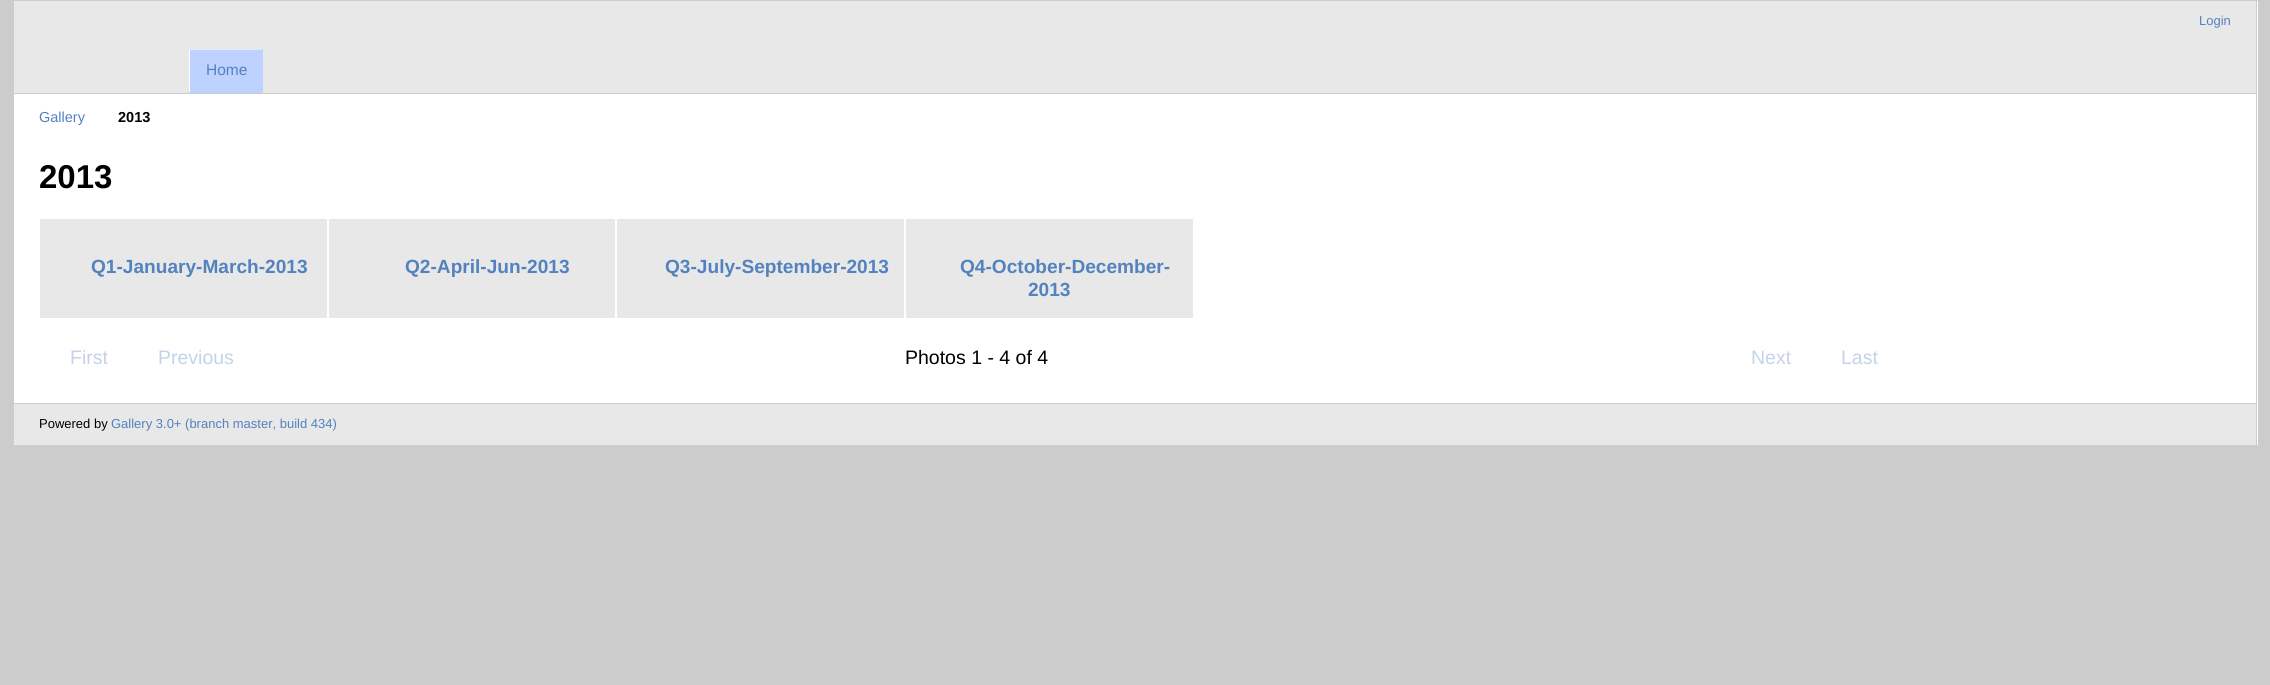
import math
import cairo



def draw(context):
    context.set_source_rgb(204 / 255, 204 / 255, 204 / 255)
    context.paint()
    context.set_source_rgb(1, 1, 1)
    context.rectangle(14, 1, 2244, 444)
    context.fill()
    context.set_source_rgb(204 / 255, 204 / 255, 204 / 255)
    context.rectangle(2256, 0, 1, 445)
    context.fill()
    context.set_source_rgb(232 / 255, 232 / 255, 232 / 255)
    context.rectangle(14, 1, 2242, 92)
    context.fill()
    context.set_source_rgb(204 / 255, 204 / 255, 204 / 255)
    context.rectangle(14, 93, 2242, 1)
    context.fill()
    context.set_source_rgb(189 / 255, 210 / 255, 1)
    context.rectangle(189, 49, 74, 44)
    context.fill()
    context.set_source_rgb(222 / 255, 233 / 255, 1)
    context.new_path()
    context.move_to(189, 49)
    context.line_to(262, 49)
    context.line_to(262, 50)
    context.line_to(190, 50)
    context.close_path()
    context.fill()
    context.set_source_rgb(1, 1, 1)
    context.new_path()
    context.move_to(189, 92)
    context.line_to(189, 49)
    context.line_to(190, 50)
    context.line_to(190, 92)
    context.close_path()
    context.fill()
    context.set_source_rgb(232 / 255, 232 / 255, 232 / 255)
    context.rectangle(40, 219, 287, 99)
    context.fill()
    context.rectangle(329, 219, 286, 99)
    context.fill()
    context.rectangle(617, 219, 287, 99)
    context.fill()
    context.rectangle(906, 219, 287, 99)
    context.fill()
    context.rectangle(14, 404, 2242, 41)
    context.fill()
    context.set_source_rgb(204 / 255, 204 / 255, 204 / 255)
    context.rectangle(14, 403, 2242, 1)
    context.fill()
    context.select_font_face("Liberation Sans")
    context.set_font_size(13)
    context.set_source_rgb(83 / 255, 130 / 255, 191 / 255)
    context.move_to(2199, 25)
    context.show_text("Login")
    context.set_font_size(15.5)
    context.move_to(206, 75)
    context.show_text("Home")
    context.set_font_size(14.5)
    context.move_to(39, 122)
    context.show_text("Gallery")
    context.select_font_face("Liberation Sans", cairo.FontSlant.NORMAL, cairo.FontWeight.BOLD)
    context.set_source_rgb(0, 0, 0)
    context.move_to(118, 122)
    context.show_text("2013")
    context.set_font_size(33)
    context.move_to(39, 188)
    context.show_text("2013")
    context.set_font_size(19.1)
    context.set_source_rgb(83 / 255, 130 / 255, 191 / 255)
    context.move_to(91, 273)
    context.show_text("Q1-January-March-2013")
    context.move_to(405, 273)
    context.show_text("Q2-April-Jun-2013")
    context.move_to(665, 273)
    context.show_text("Q3-July-September-2013")
    context.move_to(960, 273)
    context.show_text("Q4-October-December-")
    context.move_to(1028, 296)
    context.show_text("2013")
    context.select_font_face("Liberation Sans")
    context.set_font_size(19.5)
    context.set_source_rgb(195 / 255, 211 / 255, 233 / 255)
    context.move_to(70, 364)
    context.show_text("First")
    context.move_to(158, 364)
    context.show_text("Previous")
    context.set_source_rgb(0, 0, 0)
    context.move_to(905, 364)
    context.show_text("Photos 1 - 4 of 4")
    context.set_source_rgb(195 / 255, 211 / 255, 233 / 255)
    context.move_to(1751, 364)
    context.show_text("Next")
    context.move_to(1841, 364)
    context.show_text("Last")
    context.set_font_size(13)
    context.set_source_rgb(0, 0, 0)
    context.move_to(39, 428)
    context.show_text("Powered by")
    context.set_source_rgb(83 / 255, 130 / 255, 191 / 255)
    context.move_to(111, 428)
    context.show_text("Gallery 3.0+ (branch master, build 434)")


surface = cairo.ImageSurface(cairo.Format.RGB24, 2270, 685)
context = cairo.Context(surface)
options = cairo.FontOptions()
options.set_hint_metrics(cairo.HintMetrics.OFF)
options.set_hint_style(cairo.HintStyle.NONE)
context.set_font_options(options)
context.set_miter_limit(4)
draw(context)
surface.write_to_png("out.png")
